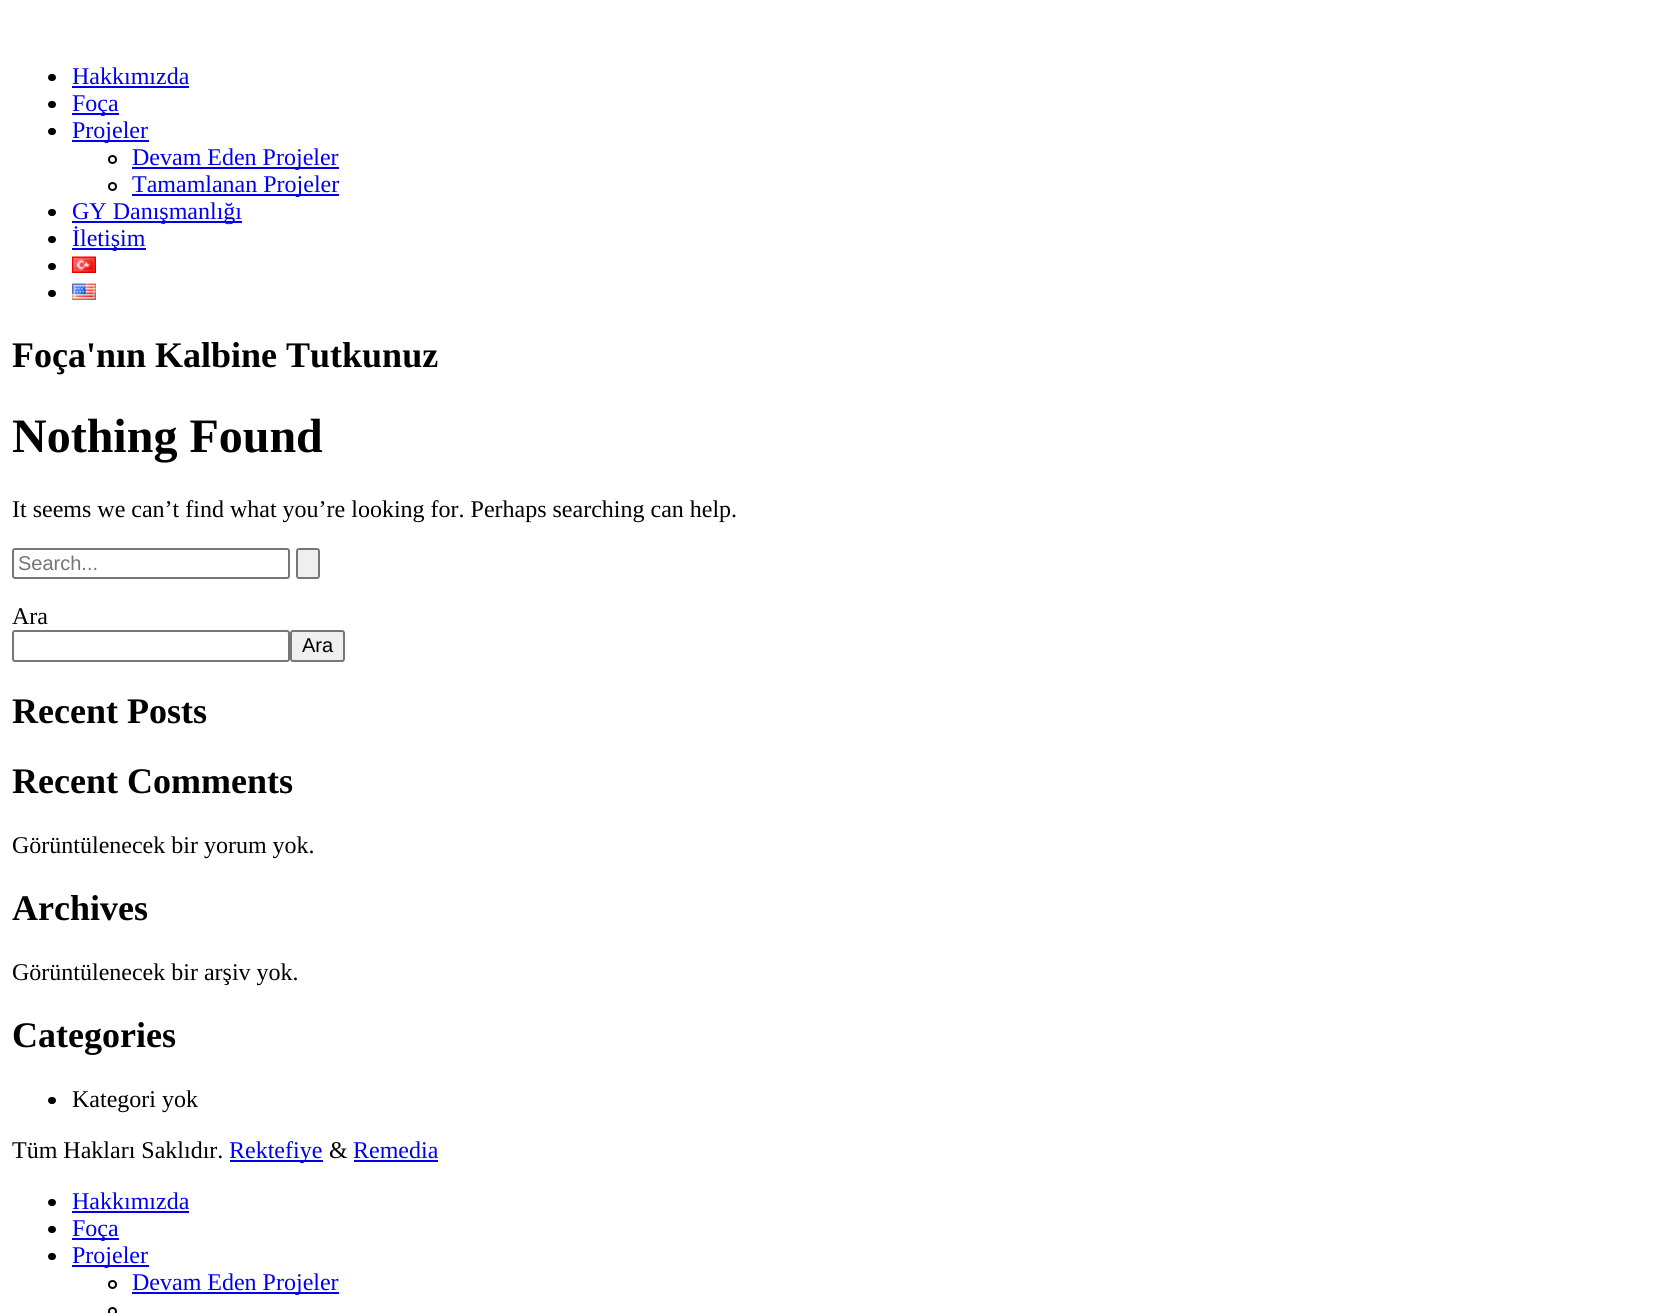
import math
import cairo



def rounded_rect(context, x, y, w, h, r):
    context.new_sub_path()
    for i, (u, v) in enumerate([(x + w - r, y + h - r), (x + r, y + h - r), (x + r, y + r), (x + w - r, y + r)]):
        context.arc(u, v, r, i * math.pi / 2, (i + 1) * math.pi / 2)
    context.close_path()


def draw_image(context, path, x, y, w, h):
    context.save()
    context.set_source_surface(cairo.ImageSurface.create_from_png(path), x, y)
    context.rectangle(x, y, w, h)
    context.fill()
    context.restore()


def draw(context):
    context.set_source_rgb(1, 1, 1)
    context.paint()
    context.set_source_rgb(0, 0, 0)
    rounded_rect(context, 48, 74, 8, 7, 3.5)
    context.fill()
    context.set_source_rgb(0, 0, 238 / 255)
    context.rectangle(72, 86, 117, 2)
    context.fill()
    context.set_source_rgb(0, 0, 0)
    rounded_rect(context, 48, 101, 8, 7, 3.5)
    context.fill()
    context.set_source_rgb(0, 0, 238 / 255)
    context.rectangle(72, 113, 47, 2)
    context.fill()
    context.set_source_rgb(0, 0, 0)
    rounded_rect(context, 48, 128, 8, 7, 3.5)
    context.fill()
    context.set_source_rgb(0, 0, 238 / 255)
    context.rectangle(72, 140, 77, 2)
    context.fill()
    context.arc(112.5, 159.5, 3.5, 0, 2 * math.pi)
    context.set_source_rgb(0, 0, 0)
    context.stroke()
    context.set_source_rgb(0, 0, 238 / 255)
    context.rectangle(132, 167, 207, 2)
    context.fill()
    context.arc(112.5, 186.5, 3.5, 0, 2 * math.pi)
    context.set_source_rgb(0, 0, 0)
    context.stroke()
    context.set_source_rgb(0, 0, 238 / 255)
    context.rectangle(132, 194, 207, 2)
    context.fill()
    context.set_source_rgb(0, 0, 0)
    rounded_rect(context, 48, 209, 8, 7, 3.5)
    context.fill()
    context.set_source_rgb(0, 0, 238 / 255)
    context.rectangle(72, 221, 170, 2)
    context.fill()
    context.set_source_rgb(0, 0, 0)
    rounded_rect(context, 48, 236, 8, 7, 3.5)
    context.fill()
    context.set_source_rgb(0, 0, 238 / 255)
    context.rectangle(72, 248, 74, 2)
    context.fill()
    context.set_source_rgb(0, 0, 0)
    rounded_rect(context, 48, 263, 8, 7, 3.5)
    context.fill()
    draw_image(context, "images/1.png", 72, 256, 24, 17)
    rounded_rect(context, 48, 290, 8, 7, 3.5)
    context.fill()
    draw_image(context, "images/2.png", 72, 283, 24, 17)
    rounded_rect(context, 13, 549, 276, 29, 2)
    context.set_source_rgb(118 / 255, 118 / 255, 118 / 255)
    context.stroke()
    context.set_source_rgb(239 / 255, 239 / 255, 239 / 255)
    rounded_rect(context, 297, 549, 22, 29, 2)
    context.fill_preserve()
    context.set_source_rgb(118 / 255, 118 / 255, 118 / 255)
    context.stroke()
    rounded_rect(context, 13, 631, 276, 30, 2)
    context.stroke()
    context.set_source_rgb(239 / 255, 239 / 255, 239 / 255)
    rounded_rect(context, 291, 631, 53, 30, 2)
    context.fill_preserve()
    context.set_source_rgb(118 / 255, 118 / 255, 118 / 255)
    context.stroke()
    context.set_source_rgb(0, 0, 0)
    rounded_rect(context, 48, 1097, 8, 7, 3.5)
    context.fill()
    context.set_source_rgb(0, 0, 238 / 255)
    context.rectangle(230, 1160, 93, 2)
    context.fill()
    context.rectangle(354, 1160, 84, 2)
    context.fill()
    context.set_source_rgb(0, 0, 0)
    rounded_rect(context, 48, 1199, 8, 7, 3.5)
    context.fill()
    context.set_source_rgb(0, 0, 238 / 255)
    context.rectangle(72, 1211, 117, 2)
    context.fill()
    context.set_source_rgb(0, 0, 0)
    rounded_rect(context, 48, 1226, 8, 7, 3.5)
    context.fill()
    context.set_source_rgb(0, 0, 238 / 255)
    context.rectangle(72, 1238, 47, 2)
    context.fill()
    context.set_source_rgb(0, 0, 0)
    rounded_rect(context, 48, 1253, 8, 7, 3.5)
    context.fill()
    context.set_source_rgb(0, 0, 238 / 255)
    context.rectangle(72, 1265, 77, 2)
    context.fill()
    context.arc(112.5, 1284.5, 3.5, 0, 2 * math.pi)
    context.set_source_rgb(0, 0, 0)
    context.stroke()
    context.set_source_rgb(0, 0, 238 / 255)
    context.rectangle(132, 1292, 207, 2)
    context.fill()
    context.arc(112.5, 1311.5, 3.5, 0, 2 * math.pi)
    context.set_source_rgb(0, 0, 0)
    context.stroke()
    context.select_font_face("Liberation Serif")
    context.set_font_size(24)
    context.set_source_rgb(0, 0, 238 / 255)
    context.move_to(72, 84)
    context.show_text("Hakkımızda")
    context.move_to(72, 111)
    context.show_text("Foça")
    context.move_to(72, 138)
    context.show_text("Projeler")
    context.move_to(132, 165)
    context.show_text("Devam Eden Projeler")
    context.move_to(132, 192)
    context.show_text("Tamamlanan Projeler")
    context.move_to(72, 219)
    context.show_text("GY Danışmanlığı")
    context.move_to(72, 246)
    context.show_text("İletişim")
    context.select_font_face("Liberation Serif", cairo.FontSlant.NORMAL, cairo.FontWeight.BOLD)
    context.set_font_size(36)
    context.set_source_rgb(0, 0, 0)
    context.move_to(12, 367)
    context.show_text("Foça'nın Kalbine Tutkunuz")
    context.set_font_size(48)
    context.move_to(12, 452)
    context.show_text("Nothing Found")
    context.select_font_face("Liberation Serif")
    context.set_font_size(24)
    context.move_to(12, 517)
    context.show_text("It seems we can’t find what you’re looking for. Perhaps searching can help.")
    context.select_font_face("Liberation Sans")
    context.set_font_size(20)
    context.set_source_rgb(117 / 255, 117 / 255, 117 / 255)
    context.move_to(18, 570)
    context.show_text("Search...")
    context.select_font_face("Liberation Serif")
    context.set_font_size(24)
    context.set_source_rgb(0, 0, 0)
    context.move_to(12, 624)
    context.show_text("Ara")
    context.select_font_face("Liberation Sans")
    context.set_font_size(20)
    context.move_to(302, 652)
    context.show_text("Ara")
    context.select_font_face("Liberation Serif", cairo.FontSlant.NORMAL, cairo.FontWeight.BOLD)
    context.set_font_size(36)
    context.move_to(12, 723)
    context.show_text("Recent Posts")
    context.move_to(12, 793)
    context.show_text("Recent Comments")
    context.select_font_face("Liberation Serif")
    context.set_font_size(24)
    context.move_to(12, 853)
    context.show_text("Görüntülenecek bir yorum yok.")
    context.select_font_face("Liberation Serif", cairo.FontSlant.NORMAL, cairo.FontWeight.BOLD)
    context.set_font_size(36)
    context.move_to(12, 920)
    context.show_text("Archives")
    context.select_font_face("Liberation Serif")
    context.set_font_size(24)
    context.move_to(12, 980)
    context.show_text("Görüntülenecek bir arşiv yok.")
    context.select_font_face("Liberation Serif", cairo.FontSlant.NORMAL, cairo.FontWeight.BOLD)
    context.set_font_size(36)
    context.move_to(12, 1047)
    context.show_text("Categories")
    context.select_font_face("Liberation Serif")
    context.set_font_size(24)
    context.move_to(72, 1107)
    context.show_text("Kategori yok")
    context.move_to(12, 1158)
    context.show_text("Tüm Hakları Saklıdır.")
    context.set_source_rgb(0, 0, 238 / 255)
    context.move_to(229, 1158)
    context.show_text("Rektefiye")
    context.set_source_rgb(0, 0, 0)
    context.move_to(329, 1158)
    context.show_text("&")
    context.set_source_rgb(0, 0, 238 / 255)
    context.move_to(353, 1158)
    context.show_text("Remedia")
    context.move_to(72, 1209)
    context.show_text("Hakkımızda")
    context.move_to(72, 1236)
    context.show_text("Foça")
    context.move_to(72, 1263)
    context.show_text("Projeler")
    context.move_to(132, 1290)
    context.show_text("Devam Eden Projeler")


surface = cairo.ImageSurface(cairo.Format.RGB24, 1677, 1313)
context = cairo.Context(surface)
options = cairo.FontOptions()
options.set_hint_metrics(cairo.HintMetrics.OFF)
options.set_hint_style(cairo.HintStyle.NONE)
context.set_font_options(options)
context.set_miter_limit(4)
draw(context)
surface.write_to_png("out.png")
